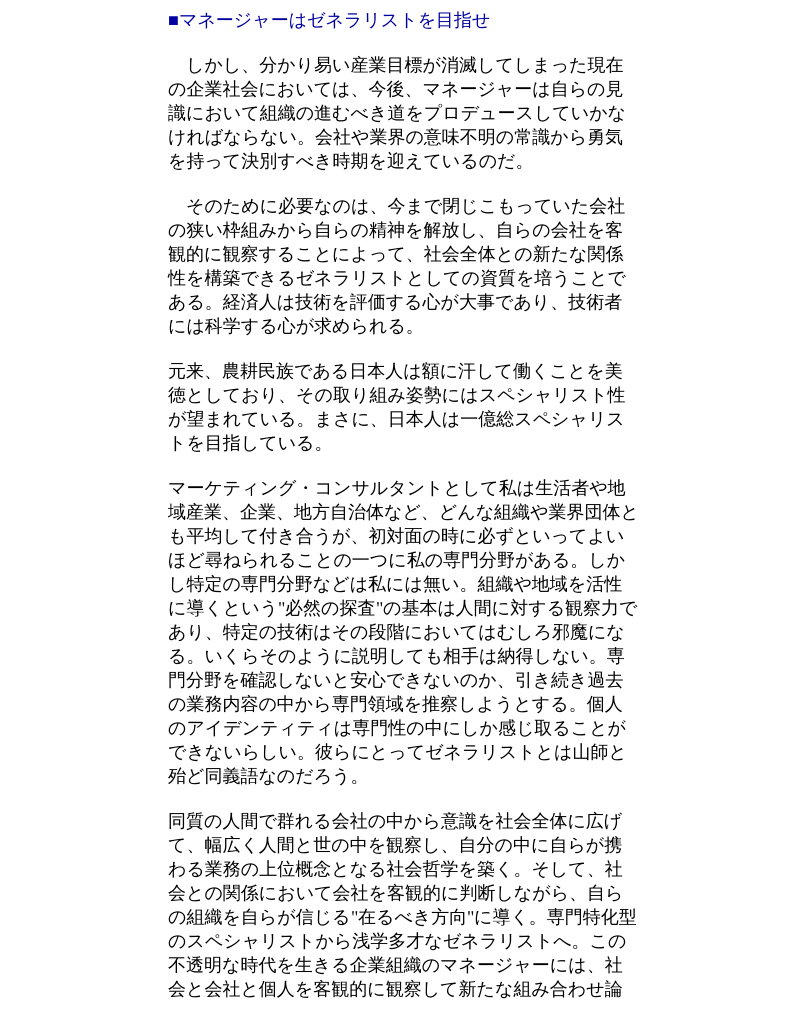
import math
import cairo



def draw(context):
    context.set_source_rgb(1, 1, 1)
    context.paint()
    context.select_font_face("Liberation Serif")
    context.set_font_size(18)
    context.set_source_rgb(0, 0, 160 / 255)
    context.move_to(168, 26)
    context.show_text("■")
    context.select_font_face("WenQuanYi Zen Hei Medium")
    context.move_to(179, 26)
    context.show_text("マネージャーはゼネラリストを目指せ")
    context.set_source_rgb(0, 0, 0)
    context.move_to(186, 71)
    context.show_text("しかし、分かり易い産業目標が消滅してしまった現在")
    context.move_to(168, 95)
    context.show_text("の企業社会においては、今後、マネージャーは自らの見")
    context.move_to(168, 119)
    context.show_text("識において組織の進むべき道をプロデュースしていかな")
    context.move_to(168, 143)
    context.show_text("ければならない。会社や業界の意味不明の常識から勇気")
    context.move_to(168, 167)
    context.show_text("を持って決別すべき時期を迎えているのだ。")
    context.move_to(186, 212)
    context.show_text("そのために必要なのは、今まで閉じこもっていた会社")
    context.move_to(168, 236)
    context.show_text("の狭い枠組みから自らの精神を解放し、自らの会社を客")
    context.move_to(168, 260)
    context.show_text("観的に観察することによって、社会全体との新たな関係")
    context.move_to(168, 284)
    context.show_text("性を構築できるゼネラリストとしての資質を培うことで")
    context.move_to(168, 308)
    context.show_text("ある。経済人は技術を評価する心が大事であり、技術者")
    context.move_to(168, 332)
    context.show_text("には科学する心が求められる。")
    context.move_to(168, 377)
    context.show_text("元来、農耕民族である日本人は額に汗して働くことを美")
    context.move_to(168, 401)
    context.show_text("徳としており、その取り組み姿勢にはスペシャリスト性")
    context.move_to(168, 425)
    context.show_text("が望まれている。まさに、日本人は一億総スペシャリス")
    context.move_to(168, 449)
    context.show_text("トを目指している。")
    context.move_to(168, 494)
    context.show_text("マーケティング・コンサルタントとして私は生活者や地")
    context.move_to(168, 518)
    context.show_text("域産業、企業、地方自治体など、どんな組織や業界団体と")
    context.move_to(168, 542)
    context.show_text("も平均して付き合うが、初対面の時に必ずといってよい")
    context.move_to(168, 566)
    context.show_text("ほど尋ねられることの一つに私の専門分野がある。しか")
    context.move_to(168, 590)
    context.show_text("し特定の専門分野などは私には無い。組織や地域を活性")
    context.move_to(168, 614)
    context.show_text("に導くという")
    context.select_font_face("Liberation Serif")
    context.move_to(278, 614)
    context.show_text("\"")
    context.select_font_face("WenQuanYi Zen Hei Medium")
    context.move_to(285, 614)
    context.show_text("必然の探査")
    context.select_font_face("Liberation Serif")
    context.move_to(376, 614)
    context.show_text("\"")
    context.select_font_face("WenQuanYi Zen Hei Medium")
    context.move_to(383, 614)
    context.show_text("の基本は人間に対する観察力で")
    context.move_to(168, 638)
    context.show_text("あり、特定の技術はその段階においてはむしろ邪魔にな")
    context.move_to(168, 662)
    context.show_text("る。いくらそのように説明しても相手は納得しない。専")
    context.move_to(168, 686)
    context.show_text("門分野を確認しないと安心できないのか、引き続き過去")
    context.move_to(168, 710)
    context.show_text("の業務内容の中から専門領域を推察しようとする。個人")
    context.move_to(168, 734)
    context.show_text("のアイデンティティは専門性の中にしか感じ取ることが")
    context.move_to(168, 758)
    context.show_text("できないらしい。彼らにとってゼネラリストとは山師と")
    context.move_to(168, 782)
    context.show_text("殆ど同義語なのだろう。")
    context.move_to(168, 827)
    context.show_text("同質の人間で群れる会社の中から意識を社会全体に広げ")
    context.move_to(168, 851)
    context.show_text("て、幅広く人間と世の中を観察し、自分の中に自らが携")
    context.move_to(168, 875)
    context.show_text("わる業務の上位概念となる社会哲学を築く。そして、社")
    context.move_to(168, 899)
    context.show_text("会との関係において会社を客観的に判断しながら、自ら")
    context.move_to(168, 923)
    context.show_text("の組織を自らが信じる")
    context.select_font_face("Liberation Serif")
    context.move_to(351, 923)
    context.show_text("\"")
    context.select_font_face("WenQuanYi Zen Hei Medium")
    context.move_to(358, 923)
    context.show_text("在るべき方向")
    context.select_font_face("Liberation Serif")
    context.move_to(467, 923)
    context.show_text("\"")
    context.select_font_face("WenQuanYi Zen Hei Medium")
    context.move_to(474, 923)
    context.show_text("に導く。専門特化型")
    context.move_to(168, 947)
    context.show_text("のスペシャリストから浅学多才なゼネラリストへ。この")
    context.move_to(168, 971)
    context.show_text("不透明な時代を生きる企業組織のマネージャーには、社")
    context.move_to(168, 995)
    context.show_text("会と会社と個人を客観的に観察して新たな組み合わせ論")


surface = cairo.ImageSurface(cairo.Format.RGB24, 808, 1011)
context = cairo.Context(surface)
options = cairo.FontOptions()
options.set_hint_metrics(cairo.HintMetrics.OFF)
options.set_hint_style(cairo.HintStyle.NONE)
context.set_font_options(options)
context.set_miter_limit(4)
draw(context)
surface.write_to_png("out.png")
